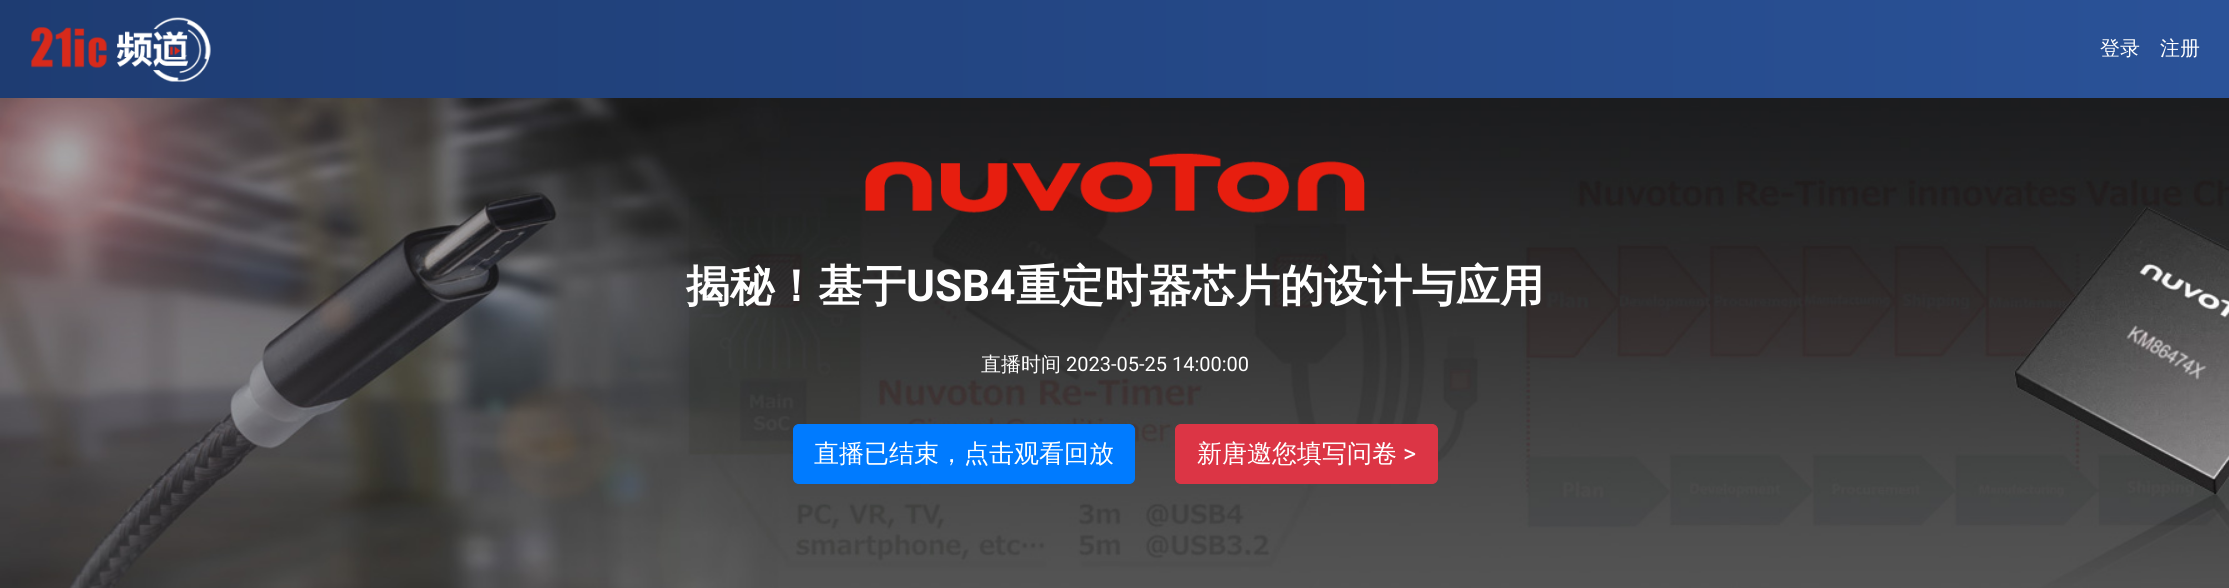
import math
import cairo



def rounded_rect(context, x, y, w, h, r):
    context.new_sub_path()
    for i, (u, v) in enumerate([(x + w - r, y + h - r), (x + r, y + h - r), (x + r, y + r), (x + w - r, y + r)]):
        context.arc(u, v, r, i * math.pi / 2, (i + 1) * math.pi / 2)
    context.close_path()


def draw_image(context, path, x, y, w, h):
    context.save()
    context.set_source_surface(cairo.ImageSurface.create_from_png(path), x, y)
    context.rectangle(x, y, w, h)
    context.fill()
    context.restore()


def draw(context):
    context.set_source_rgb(1, 1, 1)
    context.paint()
    gradient = cairo.LinearGradient(0, 49, 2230, 49)
    gradient.add_color_stop_rgba(0, 30 / 255, 60 / 255, 114 / 255, 1)
    gradient.add_color_stop_rgba(1, 42 / 255, 82 / 255, 152 / 255, 1)
    context.set_source(gradient)
    context.rectangle(0, 0, 2229, 98)
    context.fill()
    draw_image(context, "images/1.png", 31, 17, 180, 65)
    draw_image(context, "images/2.png", 0, 98, 2229, 490)
    draw_image(context, "images/3.png", 865, 153, 500, 60)
    context.set_source_rgb(0, 123 / 255, 1)
    rounded_rect(context, 793.5, 424.5, 341, 59, 5.5)
    context.fill_preserve()
    context.set_line_width(1)
    context.stroke()
    context.set_source_rgb(220 / 255, 53 / 255, 69 / 255)
    rounded_rect(context, 1175.5, 424.5, 262, 59, 5.5)
    context.fill_preserve()
    context.stroke()
    context.select_font_face("WenQuanYi Zen Hei Medium")
    context.set_font_size(20)
    context.set_source_rgb(1, 1, 1)
    context.move_to(2100, 55)
    context.show_text("登录")
    context.move_to(2160, 55)
    context.show_text("注册")
    context.select_font_face("WenQuanYi Zen Hei", cairo.FontSlant.NORMAL, cairo.FontWeight.BOLD)
    context.set_font_size(44)
    context.move_to(686, 301)
    context.show_text("揭秘！基于")
    context.select_font_face("Roboto", cairo.FontSlant.NORMAL, cairo.FontWeight.BOLD)
    context.move_to(906, 301)
    context.show_text("USB4")
    context.select_font_face("WenQuanYi Zen Hei", cairo.FontSlant.NORMAL, cairo.FontWeight.BOLD)
    context.move_to(1016, 301)
    context.show_text("重定时器芯片的设计与应用")
    context.select_font_face("WenQuanYi Zen Hei Medium")
    context.set_font_size(20)
    context.move_to(981, 371)
    context.show_text("直播时间")
    context.select_font_face("Roboto")
    context.move_to(1066, 371)
    context.show_text("2023-05-25 14:00:00")
    context.select_font_face("WenQuanYi Zen Hei Medium")
    context.set_font_size(25)
    context.move_to(814, 462)
    context.show_text("直播已结束，点击观看回放")
    context.move_to(1197, 462)
    context.show_text("新唐邀您填写问卷")
    context.select_font_face("Roboto")
    context.move_to(1403, 462)
    context.show_text(">")


surface = cairo.ImageSurface(cairo.Format.RGB24, 2229, 588)
context = cairo.Context(surface)
options = cairo.FontOptions()
options.set_hint_metrics(cairo.HintMetrics.OFF)
options.set_hint_style(cairo.HintStyle.NONE)
context.set_font_options(options)
context.set_miter_limit(4)
draw(context)
surface.write_to_png("out.png")
